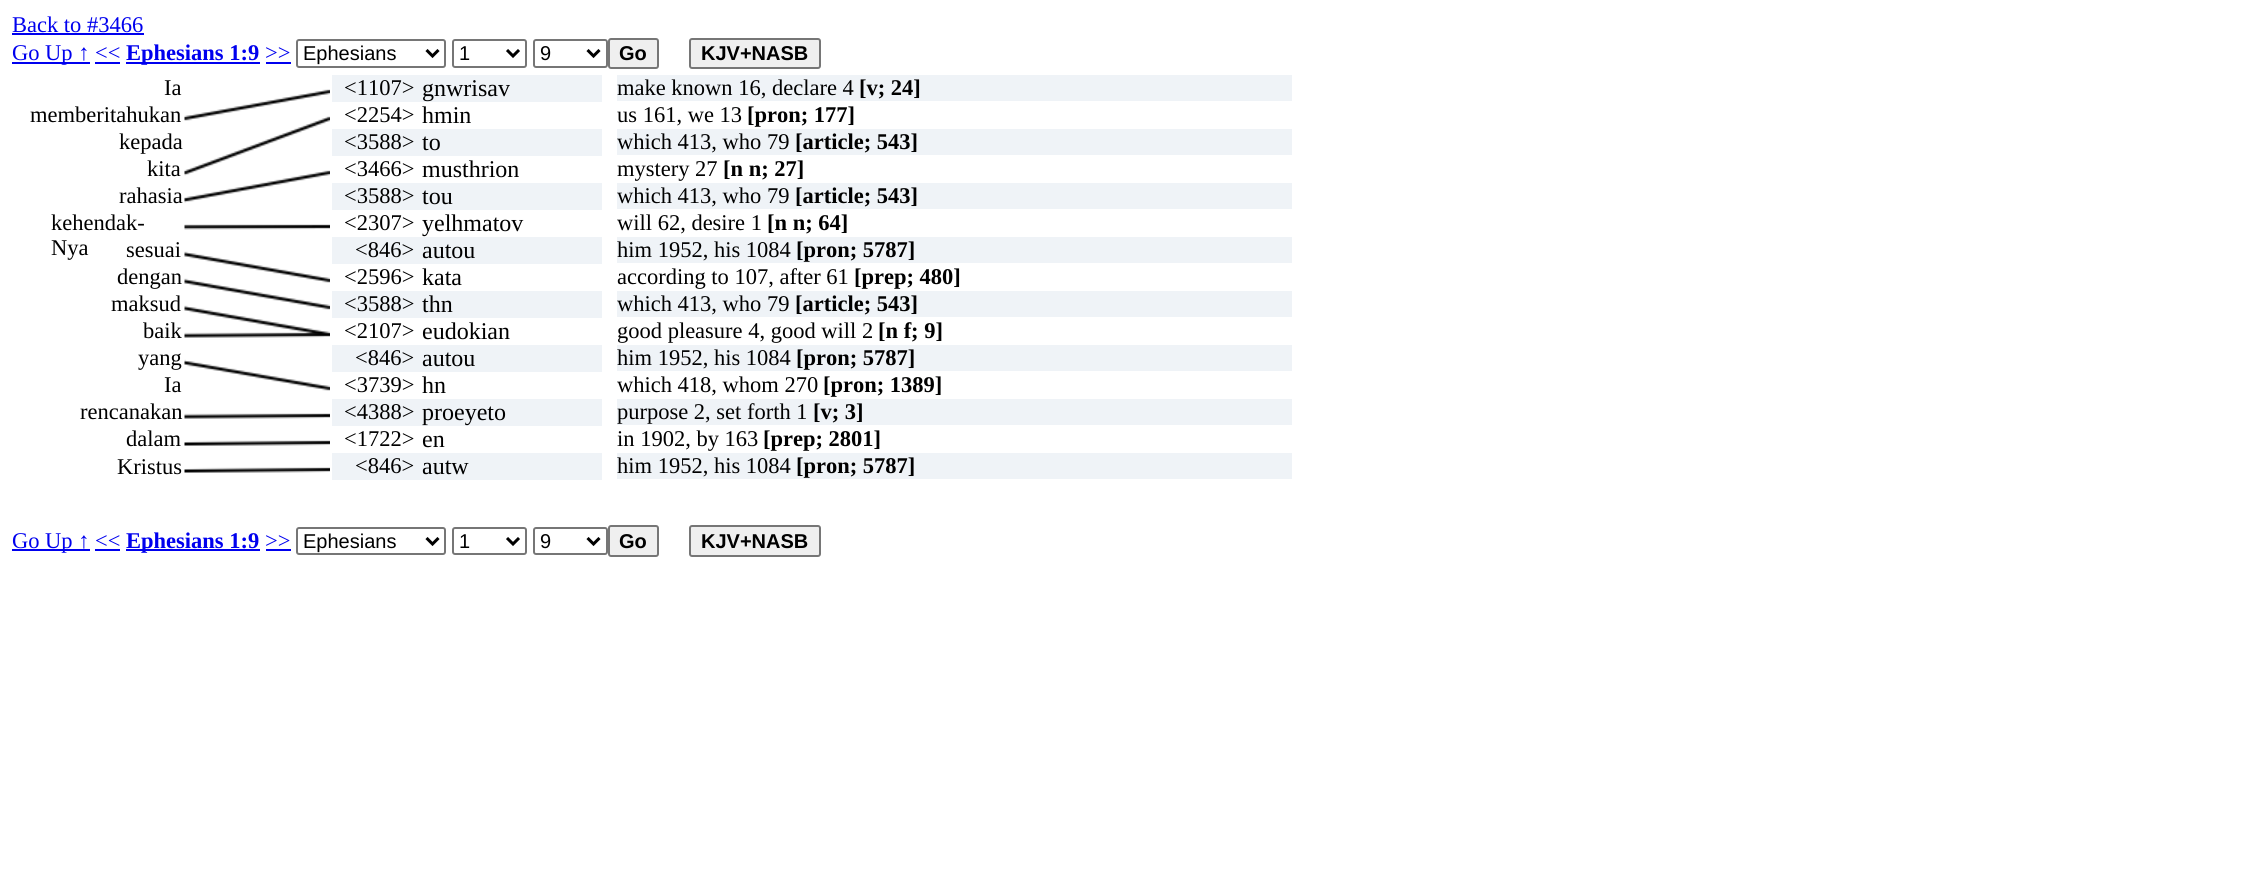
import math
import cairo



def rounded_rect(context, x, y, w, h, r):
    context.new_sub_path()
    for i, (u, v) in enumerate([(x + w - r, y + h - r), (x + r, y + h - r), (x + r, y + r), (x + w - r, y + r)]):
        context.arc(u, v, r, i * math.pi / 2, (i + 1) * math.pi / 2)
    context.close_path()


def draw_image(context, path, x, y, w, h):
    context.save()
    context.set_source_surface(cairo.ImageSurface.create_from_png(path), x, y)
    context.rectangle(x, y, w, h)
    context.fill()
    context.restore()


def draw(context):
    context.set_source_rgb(1, 1, 1)
    context.paint()
    context.set_source_rgb(0, 0, 238 / 255)
    context.rectangle(12, 33, 132, 2)
    context.fill()
    context.rectangle(12, 62, 78, 2)
    context.fill()
    context.rectangle(126, 62, 134, 2)
    context.fill()
    context.rectangle(266, 62, 25, 2)
    context.fill()
    rounded_rect(context, 297, 40, 148, 27, 2)
    context.set_source_rgb(118 / 255, 118 / 255, 118 / 255)
    context.stroke()
    context.new_path()
    context.move_to(426.5, 50)
    context.line_to(432.5, 56)
    context.line_to(438.5, 50)
    context.set_source_rgb(0, 0, 0)
    context.set_line_width(3)
    context.stroke()
    rounded_rect(context, 453, 40, 73, 27, 2)
    context.set_source_rgb(118 / 255, 118 / 255, 118 / 255)
    context.set_line_width(2)
    context.stroke()
    context.new_path()
    context.move_to(507, 50)
    context.line_to(513, 56)
    context.line_to(519, 50)
    context.set_source_rgb(0, 0, 0)
    context.set_line_width(3)
    context.stroke()
    rounded_rect(context, 534, 40, 73, 27, 2)
    context.set_source_rgb(118 / 255, 118 / 255, 118 / 255)
    context.set_line_width(2)
    context.stroke()
    context.new_path()
    context.move_to(587.5, 50)
    context.line_to(593.5, 56)
    context.line_to(599.5, 50)
    context.set_source_rgb(0, 0, 0)
    context.set_line_width(3)
    context.stroke()
    context.set_source_rgb(239 / 255, 239 / 255, 239 / 255)
    rounded_rect(context, 609, 39, 49, 29, 2)
    context.fill_preserve()
    context.set_source_rgb(118 / 255, 118 / 255, 118 / 255)
    context.set_line_width(2)
    context.stroke()
    context.set_source_rgb(239 / 255, 239 / 255, 239 / 255)
    rounded_rect(context, 690, 39, 130, 29, 2)
    context.fill_preserve()
    context.set_source_rgb(118 / 255, 118 / 255, 118 / 255)
    context.stroke()
    context.set_source_rgb(0, 0, 238 / 255)
    context.rectangle(95, 62, 25, 2)
    context.fill()
    draw_image(context, "images/1.png", 184, 89, 146, 384)
    context.set_source_rgb(239 / 255, 243 / 255, 247 / 255)
    context.rectangle(332, 75, 270, 27)
    context.fill()
    context.rectangle(617, 75, 675, 26)
    context.fill()
    context.rectangle(332, 129, 270, 27)
    context.fill()
    context.rectangle(617, 129, 675, 26)
    context.fill()
    context.rectangle(332, 183, 270, 27)
    context.fill()
    context.rectangle(617, 183, 675, 26)
    context.fill()
    context.rectangle(332, 237, 270, 27)
    context.fill()
    context.rectangle(617, 237, 675, 26)
    context.fill()
    context.rectangle(332, 291, 270, 27)
    context.fill()
    context.rectangle(617, 291, 675, 26)
    context.fill()
    context.rectangle(332, 345, 270, 27)
    context.fill()
    context.rectangle(617, 345, 675, 26)
    context.fill()
    context.rectangle(332, 399, 270, 27)
    context.fill()
    context.rectangle(617, 399, 675, 26)
    context.fill()
    context.rectangle(332, 453, 270, 27)
    context.fill()
    context.rectangle(617, 453, 675, 26)
    context.fill()
    context.set_source_rgb(0, 0, 238 / 255)
    context.rectangle(12, 549, 78, 2)
    context.fill()
    context.rectangle(126, 549, 134, 2)
    context.fill()
    context.rectangle(266, 549, 25, 2)
    context.fill()
    rounded_rect(context, 297, 528, 148, 26, 2)
    context.set_source_rgb(118 / 255, 118 / 255, 118 / 255)
    context.stroke()
    context.new_path()
    context.move_to(426.5, 538)
    context.line_to(432.5, 544)
    context.line_to(438.5, 538)
    context.set_source_rgb(0, 0, 0)
    context.set_line_width(3)
    context.stroke()
    rounded_rect(context, 453, 528, 73, 26, 2)
    context.set_source_rgb(118 / 255, 118 / 255, 118 / 255)
    context.set_line_width(2)
    context.stroke()
    context.new_path()
    context.move_to(507, 538)
    context.line_to(513, 544)
    context.line_to(519, 538)
    context.set_source_rgb(0, 0, 0)
    context.set_line_width(3)
    context.stroke()
    rounded_rect(context, 534, 528, 73, 26, 2)
    context.set_source_rgb(118 / 255, 118 / 255, 118 / 255)
    context.set_line_width(2)
    context.stroke()
    context.new_path()
    context.move_to(587.5, 538)
    context.line_to(593.5, 544)
    context.line_to(599.5, 538)
    context.set_source_rgb(0, 0, 0)
    context.set_line_width(3)
    context.stroke()
    context.set_source_rgb(239 / 255, 239 / 255, 239 / 255)
    rounded_rect(context, 609, 526, 49, 30, 2)
    context.fill_preserve()
    context.set_source_rgb(118 / 255, 118 / 255, 118 / 255)
    context.set_line_width(2)
    context.stroke()
    context.set_source_rgb(239 / 255, 239 / 255, 239 / 255)
    rounded_rect(context, 690, 526, 130, 30, 2)
    context.fill_preserve()
    context.set_source_rgb(118 / 255, 118 / 255, 118 / 255)
    context.stroke()
    context.set_source_rgb(0, 0, 238 / 255)
    context.rectangle(95, 549, 25, 2)
    context.fill()
    context.select_font_face("Liberation Serif")
    context.set_font_size(22.5)
    context.move_to(12, 32)
    context.show_text("Back to #3466")
    context.move_to(12, 60)
    context.show_text("Go Up ↑ <<")
    context.select_font_face("Liberation Serif", cairo.FontSlant.NORMAL, cairo.FontWeight.BOLD)
    context.move_to(126, 60)
    context.show_text("Ephesians 1:9")
    context.select_font_face("Liberation Serif")
    context.move_to(265, 60)
    context.show_text(">>")
    context.select_font_face("Liberation Sans")
    context.set_font_size(20)
    context.set_source_rgb(0, 0, 0)
    context.move_to(303, 60)
    context.show_text("Ephesians")
    context.move_to(459, 60)
    context.show_text("1")
    context.move_to(540, 60)
    context.show_text("9")
    context.select_font_face("Liberation Sans", cairo.FontSlant.NORMAL, cairo.FontWeight.BOLD)
    context.move_to(619, 60)
    context.show_text("Go")
    context.move_to(701, 60)
    context.show_text("KJV+NASB")
    context.select_font_face("Liberation Serif")
    context.set_font_size(22.5)
    context.move_to(164, 95)
    context.show_text("Ia")
    context.move_to(344, 95)
    context.show_text("<1107>")
    context.set_font_size(24)
    context.move_to(422, 96)
    context.show_text("gnwrisav")
    context.set_font_size(22.5)
    context.move_to(617, 95)
    context.show_text("make known 16, declare 4")
    context.select_font_face("Liberation Serif", cairo.FontSlant.NORMAL, cairo.FontWeight.BOLD)
    context.move_to(859, 95)
    context.show_text("[v; 24]")
    context.select_font_face("Liberation Serif")
    context.move_to(30, 122)
    context.show_text("memberitahukan")
    context.move_to(344, 122)
    context.show_text("<2254>")
    context.set_font_size(24)
    context.move_to(422, 123)
    context.show_text("hmin")
    context.set_font_size(22.5)
    context.move_to(617, 122)
    context.show_text("us 161, we 13")
    context.select_font_face("Liberation Serif", cairo.FontSlant.NORMAL, cairo.FontWeight.BOLD)
    context.move_to(747, 122)
    context.show_text("[pron; 177]")
    context.select_font_face("Liberation Serif")
    context.move_to(119, 149)
    context.show_text("kepada")
    context.move_to(344, 149)
    context.show_text("<3588>")
    context.set_font_size(24)
    context.move_to(422, 150)
    context.show_text("to")
    context.set_font_size(22.5)
    context.move_to(617, 149)
    context.show_text("which 413, who 79")
    context.select_font_face("Liberation Serif", cairo.FontSlant.NORMAL, cairo.FontWeight.BOLD)
    context.move_to(795, 149)
    context.show_text("[article; 543]")
    context.select_font_face("Liberation Serif")
    context.move_to(147, 176)
    context.show_text("kita")
    context.move_to(344, 176)
    context.show_text("<3466>")
    context.set_font_size(24)
    context.move_to(422, 177)
    context.show_text("musthrion")
    context.set_font_size(22.5)
    context.move_to(617, 176)
    context.show_text("mystery 27")
    context.select_font_face("Liberation Serif", cairo.FontSlant.NORMAL, cairo.FontWeight.BOLD)
    context.move_to(723, 176)
    context.show_text("[n n; 27]")
    context.select_font_face("Liberation Serif")
    context.move_to(119, 203)
    context.show_text("rahasia")
    context.move_to(344, 203)
    context.show_text("<3588>")
    context.set_font_size(24)
    context.move_to(422, 204)
    context.show_text("tou")
    context.set_font_size(22.5)
    context.move_to(617, 203)
    context.show_text("which 413, who 79")
    context.select_font_face("Liberation Serif", cairo.FontSlant.NORMAL, cairo.FontWeight.BOLD)
    context.move_to(795, 203)
    context.show_text("[article; 543]")
    context.select_font_face("Liberation Serif")
    context.move_to(51, 230)
    context.show_text("kehendak-")
    context.move_to(51, 255)
    context.show_text("Nya")
    context.move_to(344, 230)
    context.show_text("<2307>")
    context.set_font_size(24)
    context.move_to(422, 231)
    context.show_text("yelhmatov")
    context.set_font_size(22.5)
    context.move_to(617, 230)
    context.show_text("will 62, desire 1")
    context.select_font_face("Liberation Serif", cairo.FontSlant.NORMAL, cairo.FontWeight.BOLD)
    context.move_to(767, 230)
    context.show_text("[n n; 64]")
    context.select_font_face("Liberation Serif")
    context.move_to(126, 257)
    context.show_text("sesuai")
    context.move_to(355, 257)
    context.show_text("<846>")
    context.set_font_size(24)
    context.move_to(422, 258)
    context.show_text("autou")
    context.set_font_size(22.5)
    context.move_to(617, 257)
    context.show_text("him 1952, his 1084")
    context.select_font_face("Liberation Serif", cairo.FontSlant.NORMAL, cairo.FontWeight.BOLD)
    context.move_to(796, 257)
    context.show_text("[pron; 5787]")
    context.select_font_face("Liberation Serif")
    context.move_to(117, 284)
    context.show_text("dengan")
    context.move_to(344, 284)
    context.show_text("<2596>")
    context.set_font_size(24)
    context.move_to(422, 285)
    context.show_text("kata")
    context.set_font_size(22.5)
    context.move_to(617, 284)
    context.show_text("according to 107, after 61")
    context.select_font_face("Liberation Serif", cairo.FontSlant.NORMAL, cairo.FontWeight.BOLD)
    context.move_to(854, 284)
    context.show_text("[prep; 480]")
    context.select_font_face("Liberation Serif")
    context.move_to(111, 311)
    context.show_text("maksud")
    context.move_to(344, 311)
    context.show_text("<3588>")
    context.set_font_size(24)
    context.move_to(422, 312)
    context.show_text("thn")
    context.set_font_size(22.5)
    context.move_to(617, 311)
    context.show_text("which 413, who 79")
    context.select_font_face("Liberation Serif", cairo.FontSlant.NORMAL, cairo.FontWeight.BOLD)
    context.move_to(795, 311)
    context.show_text("[article; 543]")
    context.select_font_face("Liberation Serif")
    context.move_to(143, 338)
    context.show_text("baik")
    context.move_to(344, 338)
    context.show_text("<2107>")
    context.set_font_size(24)
    context.move_to(422, 339)
    context.show_text("eudokian")
    context.set_font_size(22.5)
    context.move_to(617, 338)
    context.show_text("good pleasure 4, good will 2")
    context.select_font_face("Liberation Serif", cairo.FontSlant.NORMAL, cairo.FontWeight.BOLD)
    context.move_to(878, 338)
    context.show_text("[n f; 9]")
    context.select_font_face("Liberation Serif")
    context.move_to(138, 365)
    context.show_text("yang")
    context.move_to(355, 365)
    context.show_text("<846>")
    context.set_font_size(24)
    context.move_to(422, 366)
    context.show_text("autou")
    context.set_font_size(22.5)
    context.move_to(617, 365)
    context.show_text("him 1952, his 1084")
    context.select_font_face("Liberation Serif", cairo.FontSlant.NORMAL, cairo.FontWeight.BOLD)
    context.move_to(796, 365)
    context.show_text("[pron; 5787]")
    context.select_font_face("Liberation Serif")
    context.move_to(164, 392)
    context.show_text("Ia")
    context.move_to(344, 392)
    context.show_text("<3739>")
    context.set_font_size(24)
    context.move_to(422, 393)
    context.show_text("hn")
    context.set_font_size(22.5)
    context.move_to(617, 392)
    context.show_text("which 418, whom 270")
    context.select_font_face("Liberation Serif", cairo.FontSlant.NORMAL, cairo.FontWeight.BOLD)
    context.move_to(823, 392)
    context.show_text("[pron; 1389]")
    context.select_font_face("Liberation Serif")
    context.move_to(80, 419)
    context.show_text("rencanakan")
    context.move_to(344, 419)
    context.show_text("<4388>")
    context.set_font_size(24)
    context.move_to(422, 420)
    context.show_text("proeyeto")
    context.set_font_size(22.5)
    context.move_to(617, 419)
    context.show_text("purpose 2, set forth 1")
    context.select_font_face("Liberation Serif", cairo.FontSlant.NORMAL, cairo.FontWeight.BOLD)
    context.move_to(813, 419)
    context.show_text("[v; 3]")
    context.select_font_face("Liberation Serif")
    context.move_to(126, 446)
    context.show_text("dalam")
    context.move_to(344, 446)
    context.show_text("<1722>")
    context.set_font_size(24)
    context.move_to(422, 447)
    context.show_text("en")
    context.set_font_size(22.5)
    context.move_to(617, 446)
    context.show_text("in 1902, by 163")
    context.select_font_face("Liberation Serif", cairo.FontSlant.NORMAL, cairo.FontWeight.BOLD)
    context.move_to(763, 446)
    context.show_text("[prep; 2801]")
    context.select_font_face("Liberation Serif")
    context.move_to(117, 474)
    context.show_text("Kristus")
    context.move_to(355, 473)
    context.show_text("<846>")
    context.set_font_size(24)
    context.move_to(422, 474)
    context.show_text("autw")
    context.set_font_size(22.5)
    context.move_to(617, 473)
    context.show_text("him 1952, his 1084")
    context.select_font_face("Liberation Serif", cairo.FontSlant.NORMAL, cairo.FontWeight.BOLD)
    context.move_to(796, 473)
    context.show_text("[pron; 5787]")
    context.select_font_face("Liberation Serif")
    context.set_source_rgb(0, 0, 238 / 255)
    context.move_to(12, 548)
    context.show_text("Go Up ↑ <<")
    context.select_font_face("Liberation Serif", cairo.FontSlant.NORMAL, cairo.FontWeight.BOLD)
    context.move_to(126, 548)
    context.show_text("Ephesians 1:9")
    context.select_font_face("Liberation Serif")
    context.move_to(265, 548)
    context.show_text(">>")
    context.select_font_face("Liberation Sans")
    context.set_font_size(20)
    context.set_source_rgb(0, 0, 0)
    context.move_to(303, 548)
    context.show_text("Ephesians")
    context.move_to(459, 548)
    context.show_text("1")
    context.move_to(540, 548)
    context.show_text("9")
    context.select_font_face("Liberation Sans", cairo.FontSlant.NORMAL, cairo.FontWeight.BOLD)
    context.move_to(619, 548)
    context.show_text("Go")
    context.move_to(701, 548)
    context.show_text("KJV+NASB")


surface = cairo.ImageSurface(cairo.Format.RGB24, 2249, 892)
context = cairo.Context(surface)
options = cairo.FontOptions()
options.set_hint_metrics(cairo.HintMetrics.OFF)
options.set_hint_style(cairo.HintStyle.NONE)
context.set_font_options(options)
context.set_miter_limit(4)
draw(context)
surface.write_to_png("out.png")
